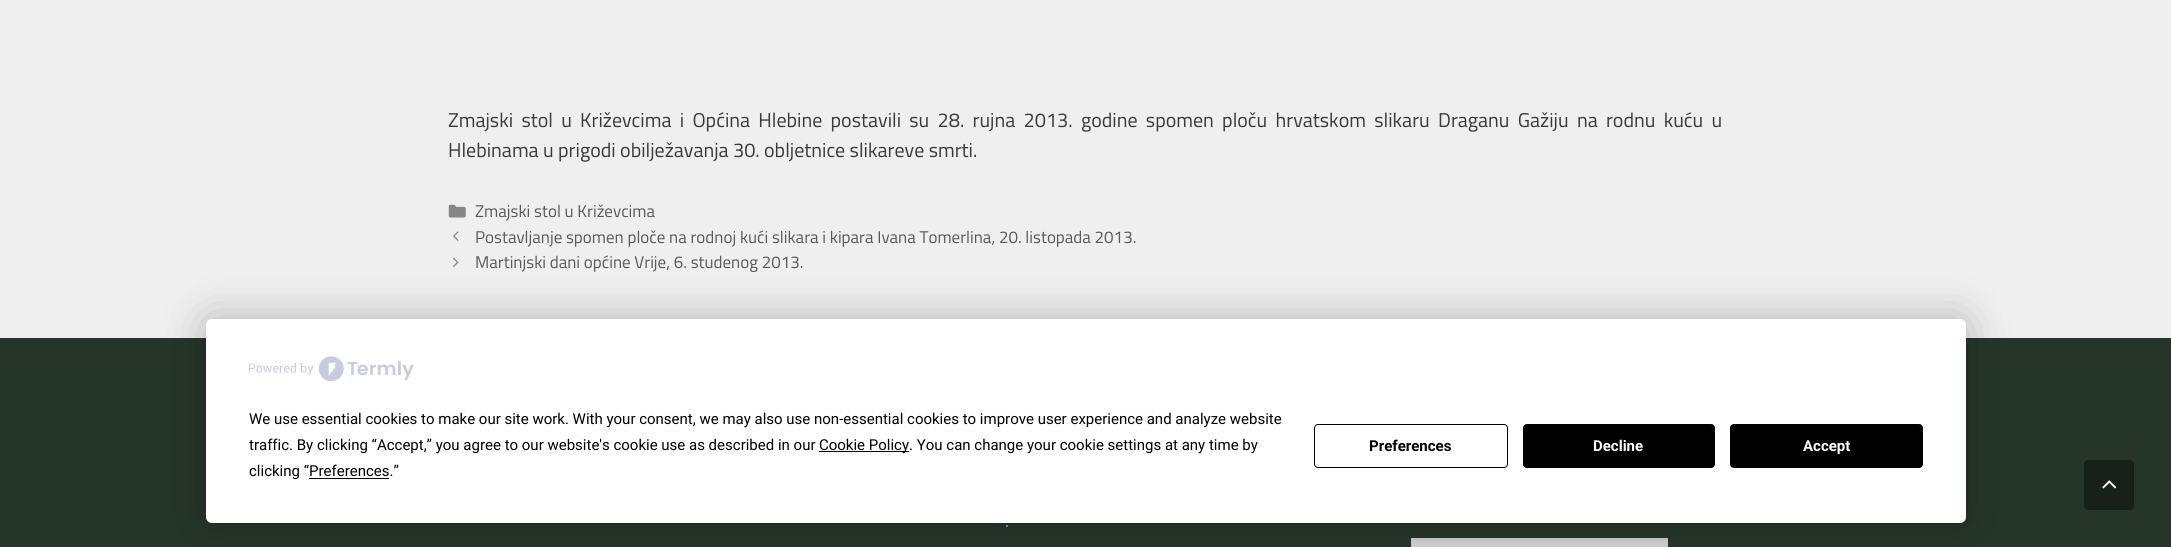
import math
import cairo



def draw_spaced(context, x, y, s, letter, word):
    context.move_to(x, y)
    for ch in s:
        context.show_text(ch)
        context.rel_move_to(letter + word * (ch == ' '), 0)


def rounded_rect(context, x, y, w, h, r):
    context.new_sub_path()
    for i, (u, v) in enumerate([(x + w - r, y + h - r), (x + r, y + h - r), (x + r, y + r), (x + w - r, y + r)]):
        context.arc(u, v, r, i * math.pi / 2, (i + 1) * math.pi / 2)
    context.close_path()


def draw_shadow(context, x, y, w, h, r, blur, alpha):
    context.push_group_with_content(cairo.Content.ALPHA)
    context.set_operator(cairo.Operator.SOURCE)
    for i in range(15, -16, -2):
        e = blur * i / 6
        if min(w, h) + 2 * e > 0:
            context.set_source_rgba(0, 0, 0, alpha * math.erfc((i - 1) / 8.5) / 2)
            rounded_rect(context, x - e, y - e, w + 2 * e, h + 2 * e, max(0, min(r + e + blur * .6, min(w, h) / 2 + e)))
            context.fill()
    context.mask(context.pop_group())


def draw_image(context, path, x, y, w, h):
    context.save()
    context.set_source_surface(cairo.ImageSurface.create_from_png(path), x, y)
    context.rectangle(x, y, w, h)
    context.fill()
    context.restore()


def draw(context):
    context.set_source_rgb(239 / 255, 239 / 255, 239 / 255)
    context.paint()
    draw_image(context, "images/1.png", 448, 204, 18, 14)
    draw_image(context, "images/2.png", 453, 231, 6, 10)
    draw_image(context, "images/3.png", 453, 257, 6, 10)
    context.set_source_rgb(38 / 255, 53 / 255, 42 / 255)
    context.rectangle(0, 338, 2171, 209)
    context.fill()
    context.set_source_rgb(209 / 255, 209 / 255, 209 / 255)
    context.rectangle(1411.5, 538.5, 256, 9)
    context.fill_preserve()
    context.set_source_rgb(204 / 255, 204 / 255, 204 / 255)
    context.set_line_width(1)
    context.stroke()
    context.set_source_rgb(0, 0, 0)
    draw_shadow(context, 206, 319, 1760, 204, 6, 22, 0.25)
    context.set_source_rgb(1, 1, 1)
    rounded_rect(context, 206, 319, 1760, 204, 6)
    context.fill()
    draw_image(context, "images/4.png", 249, 356, 165, 25)
    context.set_source_rgb(0, 0, 0)
    context.rectangle(819, 451, 90, 1)
    context.fill()
    context.rectangle(309, 478, 80, 1)
    context.fill()
    rounded_rect(context, 1314.5, 424.5, 193, 43, 3.5)
    context.stroke()
    rounded_rect(context, 1523.5, 424.5, 191, 43, 3.5)
    context.fill_preserve()
    context.stroke()
    rounded_rect(context, 1730.5, 424.5, 192, 43, 3.5)
    context.fill_preserve()
    context.stroke()
    context.set_source_rgb(23 / 255, 32 / 255, 25 / 255)
    rounded_rect(context, 2084, 460, 50, 50, 4)
    context.fill()
    draw_image(context, "images/5.png", 2102, 480, 15, 9)
    context.select_font_face("Titillium Web")
    context.set_font_size(20)
    context.set_source_rgb(58 / 255, 58 / 255, 58 / 255)
    draw_spaced(context, 448, 127, "Zmajski stol u Križevcima i Općina Hlebine postavili su 28. rujna 2013. godine spomen ploču hrvatskom slikaru Draganu Gažiju na rodnu kuću u", 0, 3.9)
    context.move_to(448, 157)
    context.show_text("Hlebinama u prigodi obilježavanja 30. obljetnice slikareve smrti.")
    context.set_font_size(17)
    context.set_source_rgb(89 / 255, 89 / 255, 89 / 255)
    context.move_to(475, 217)
    context.show_text("Zmajski stol u Križevcima")
    context.move_to(475, 243)
    context.show_text("Postavljanje spomen ploče na rodnoj kući slikara i kipara Ivana Tomerlina, 20. listopada 2013.")
    context.move_to(475, 268)
    context.show_text("Martinjski dani općine Vrije, 6. studenog 2013.")
    context.select_font_face("Roboto")
    context.set_font_size(15)
    context.set_source_rgb(0, 0, 0)
    context.move_to(249, 424)
    context.show_text("We use essential cookies to make our site work. With your consent, we may also use non-essential cookies to improve user experience and analyze website")
    context.move_to(249, 450)
    context.show_text("traffic. By clicking “Accept,” you agree to our website's cookie use as described in our")
    context.move_to(819, 450)
    context.show_text("Cookie Policy. You can change your cookie settings at any time by")
    context.move_to(249, 476)
    context.show_text("clicking “Preferences.”")
    context.select_font_face("Roboto", cairo.FontSlant.NORMAL, cairo.FontWeight.BOLD)
    context.move_to(1369, 451)
    context.show_text("Preferences")
    context.set_source_rgb(1, 1, 1)
    context.move_to(1593, 451)
    context.show_text("Decline")
    context.move_to(1803, 451)
    context.show_text("Accept")
    context.select_font_face("Titillium Web")
    context.set_font_size(18)
    context.set_source_rgb(0, 224 / 255, 216 / 255)
    context.move_to(1005, 527)
    context.show_text(".")


surface = cairo.ImageSurface(cairo.Format.RGB24, 2171, 547)
context = cairo.Context(surface)
options = cairo.FontOptions()
options.set_hint_metrics(cairo.HintMetrics.OFF)
options.set_hint_style(cairo.HintStyle.NONE)
context.set_font_options(options)
context.set_miter_limit(4)
draw(context)
surface.write_to_png("out.png")
